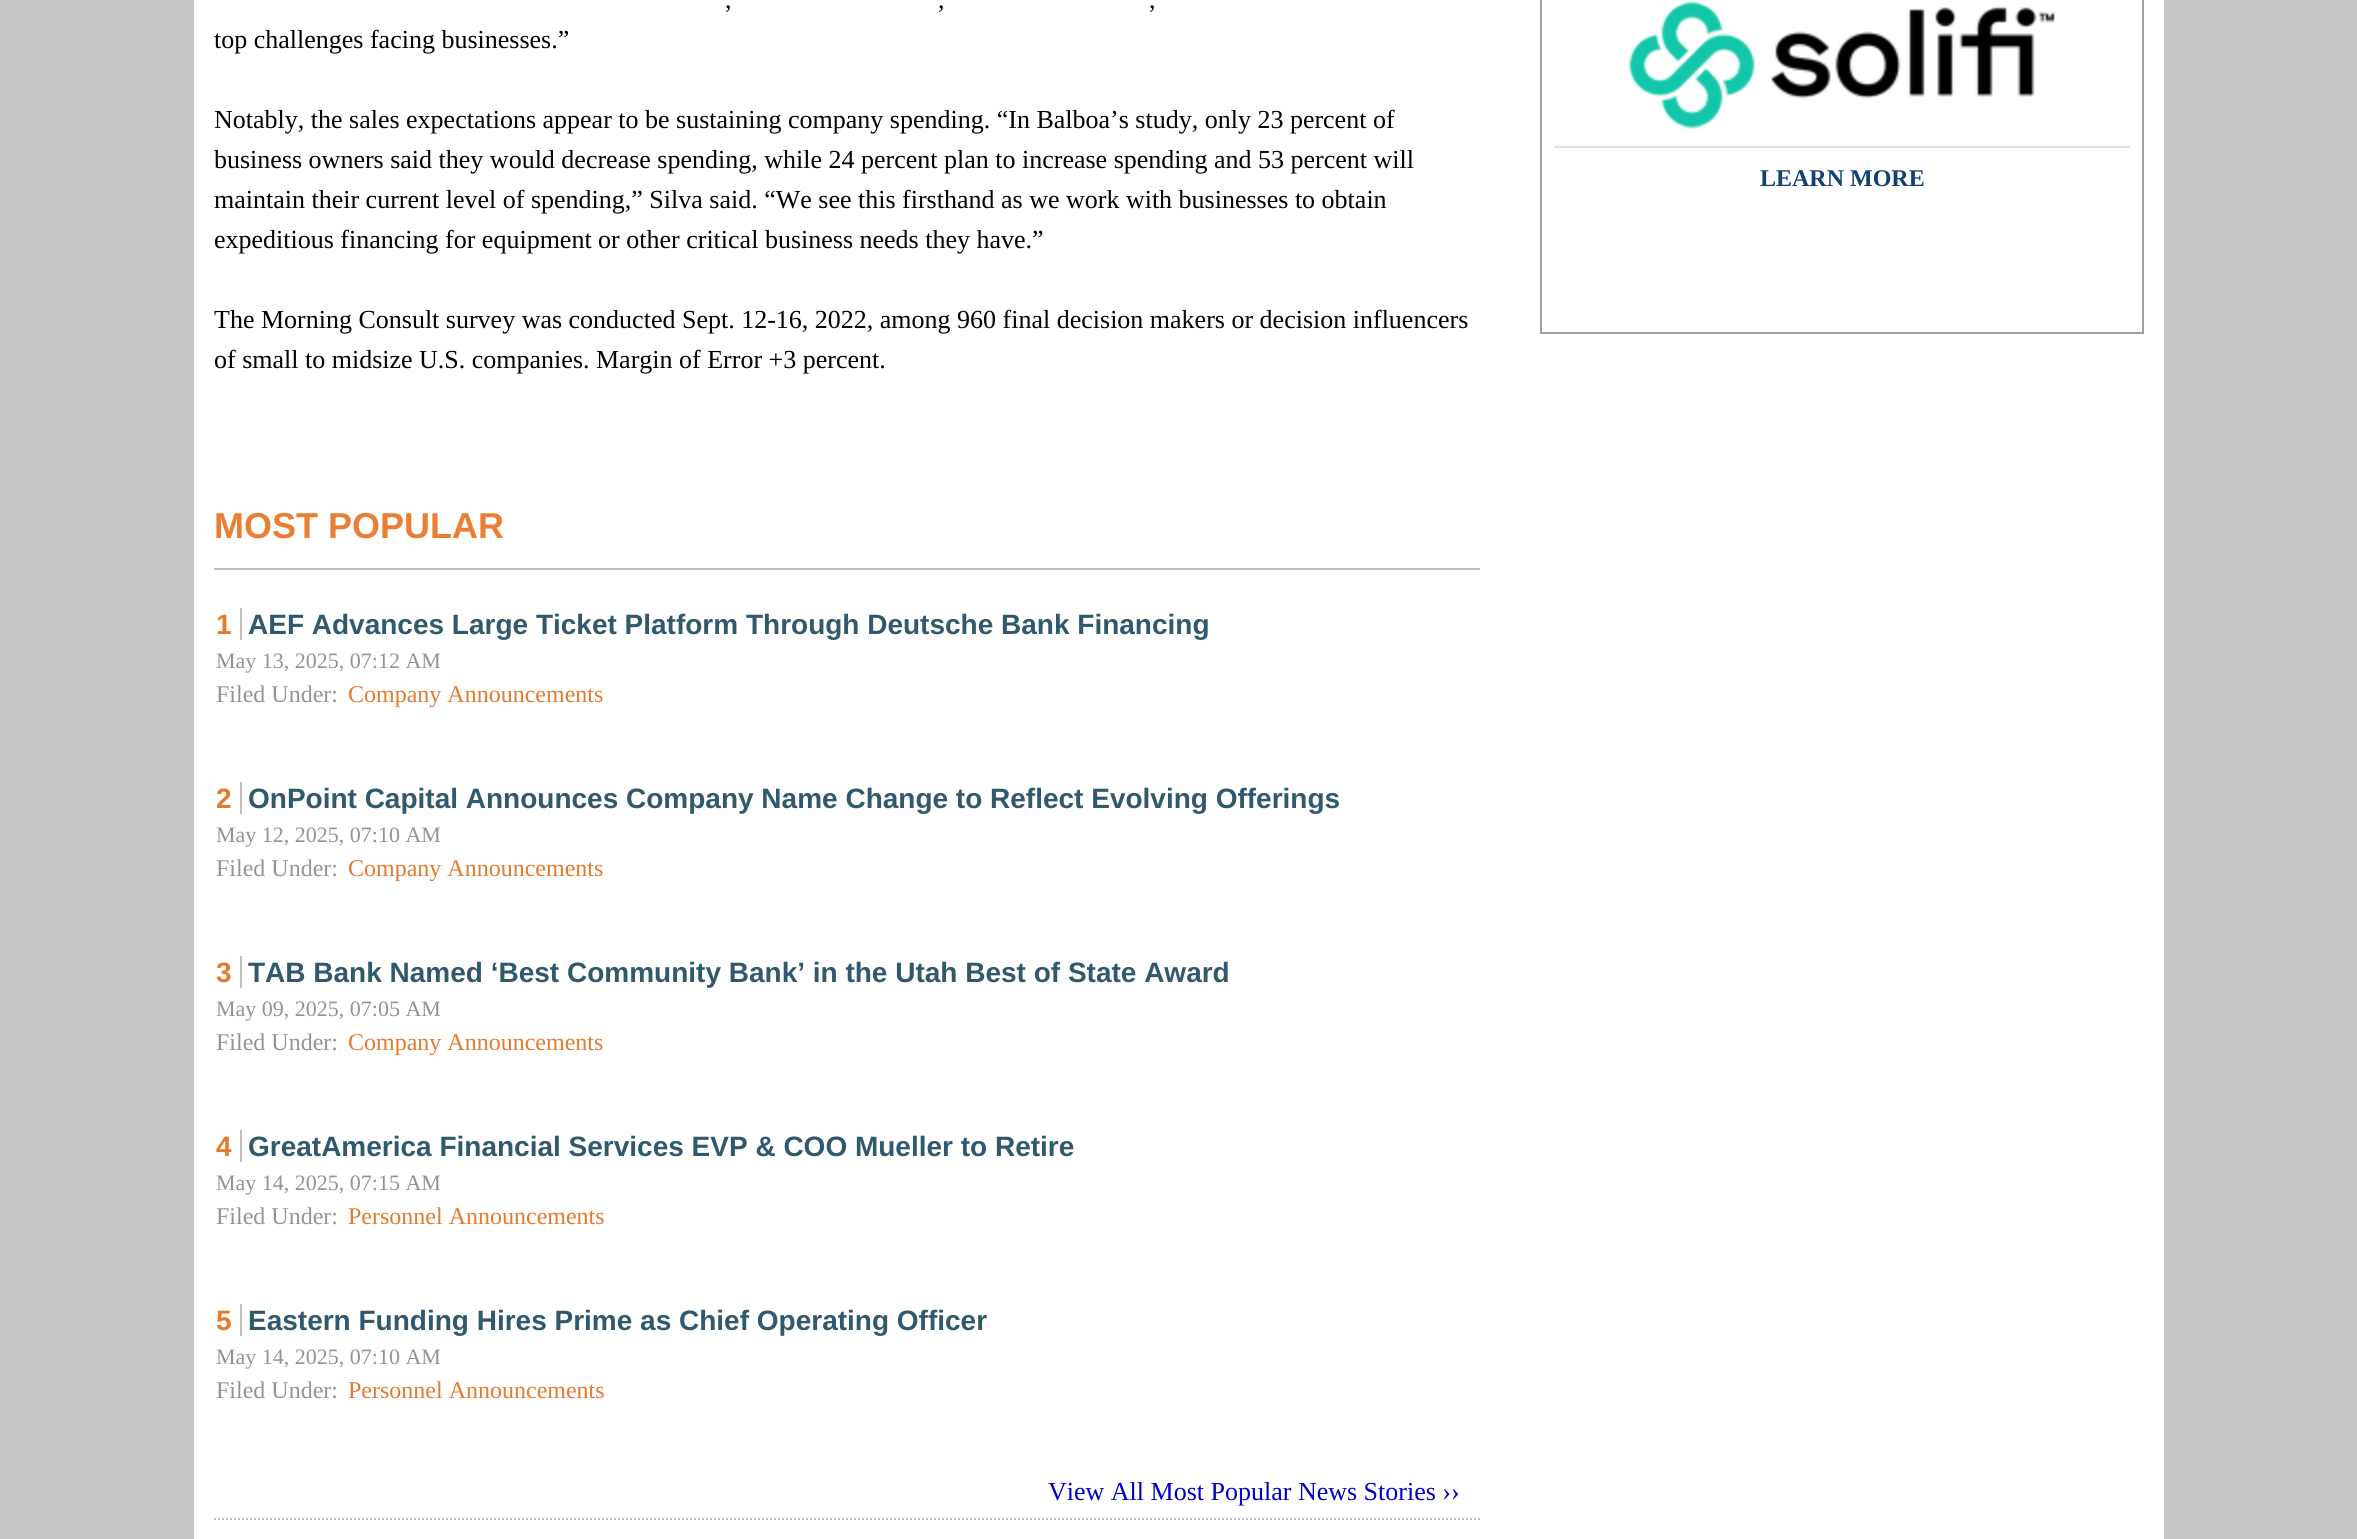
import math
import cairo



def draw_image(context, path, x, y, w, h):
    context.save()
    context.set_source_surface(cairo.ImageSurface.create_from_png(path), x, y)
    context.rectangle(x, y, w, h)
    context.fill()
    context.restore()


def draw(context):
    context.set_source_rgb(199 / 255, 199 / 255, 199 / 255)
    context.paint()
    context.set_source_rgb(1, 1, 1)
    context.rectangle(194, 0, 1970, 1539)
    context.fill()
    context.set_source_rgb(192 / 255, 192 / 255, 192 / 255)
    context.rectangle(214, 568, 1266, 2)
    context.fill()
    context.rectangle(240, 608, 2, 32)
    context.fill()
    context.rectangle(240, 782, 2, 32)
    context.fill()
    context.rectangle(240, 956, 2, 32)
    context.fill()
    context.rectangle(240, 1130, 2, 32)
    context.fill()
    context.rectangle(240, 1304, 2, 32)
    context.fill()
    context.new_path()
    context.move_to(214, 1519)
    context.line_to(1480, 1519)
    context.set_dash([2, 2])
    context.stroke()
    context.rectangle(1541, -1, 602, 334)
    context.set_source_rgb(160 / 255, 160 / 255, 160 / 255)
    context.set_dash([])
    context.stroke()
    draw_image(context, "images/1.png", 1629, 1, 426, 128)
    context.set_source_rgb(223 / 255, 224 / 255, 229 / 255)
    context.rectangle(1554, 146, 576, 2)
    context.fill()
    context.select_font_face("Liberation Serif")
    context.set_font_size(26)
    context.set_source_rgb(0, 0, 0)
    context.move_to(725, 8)
    context.show_text(",")
    context.move_to(938, 8)
    context.show_text(",")
    context.move_to(1149, 8)
    context.show_text(",")
    context.move_to(214, 48)
    context.show_text("top challenges facing businesses.”")
    context.move_to(214, 128)
    context.show_text("Notably, the sales expectations appear to be sustaining company spending. “In Balboa’s study, only 23 percent of")
    context.move_to(214, 168)
    context.show_text("business owners said they would decrease spending, while 24 percent plan to increase spending and 53 percent will")
    context.move_to(214, 208)
    context.show_text("maintain their current level of spending,” Silva said. “We see this firsthand as we work with businesses to obtain")
    context.move_to(214, 248)
    context.show_text("expeditious financing for equipment or other critical business needs they have.”")
    context.move_to(214, 328)
    context.show_text("The Morning Consult survey was conducted Sept. 12-16, 2022, among 960 final decision makers or decision influencers")
    context.move_to(214, 368)
    context.show_text("of small to midsize U.S. companies. Margin of Error +3 percent.")
    context.select_font_face("Liberation Sans", cairo.FontSlant.NORMAL, cairo.FontWeight.BOLD)
    context.set_font_size(36)
    context.set_source_rgb(234 / 255, 126 / 255, 52 / 255)
    context.move_to(214, 538)
    context.show_text("MOST POPULAR")
    context.set_font_size(28)
    context.set_source_rgb(228 / 255, 122 / 255, 46 / 255)
    context.move_to(216, 634)
    context.show_text("1")
    context.set_source_rgb(49 / 255, 89 / 255, 109 / 255)
    context.move_to(248, 634)
    context.show_text("AEF Advances Large Ticket Platform Through Deutsche Bank Financing")
    context.select_font_face("Liberation Serif")
    context.set_font_size(22)
    context.set_source_rgb(151 / 255, 146 / 255, 143 / 255)
    context.move_to(216, 668)
    context.show_text("May 13, 2025, 07:12 AM")
    context.set_font_size(24)
    context.move_to(216, 702)
    context.show_text("Filed Under:")
    context.set_source_rgb(228 / 255, 122 / 255, 46 / 255)
    context.move_to(348, 702)
    context.show_text("Company Announcements")
    context.select_font_face("Liberation Sans", cairo.FontSlant.NORMAL, cairo.FontWeight.BOLD)
    context.set_font_size(28)
    context.move_to(216, 808)
    context.show_text("2")
    context.set_source_rgb(49 / 255, 89 / 255, 109 / 255)
    context.move_to(248, 808)
    context.show_text("OnPoint Capital Announces Company Name Change to Reflect Evolving Offerings")
    context.select_font_face("Liberation Serif")
    context.set_font_size(22)
    context.set_source_rgb(151 / 255, 146 / 255, 143 / 255)
    context.move_to(216, 842)
    context.show_text("May 12, 2025, 07:10 AM")
    context.set_font_size(24)
    context.move_to(216, 876)
    context.show_text("Filed Under:")
    context.set_source_rgb(228 / 255, 122 / 255, 46 / 255)
    context.move_to(348, 876)
    context.show_text("Company Announcements")
    context.select_font_face("Liberation Sans", cairo.FontSlant.NORMAL, cairo.FontWeight.BOLD)
    context.set_font_size(28)
    context.move_to(216, 982)
    context.show_text("3")
    context.set_source_rgb(49 / 255, 89 / 255, 109 / 255)
    context.move_to(248, 982)
    context.show_text("TAB Bank Named ‘Best Community Bank’ in the Utah Best of State Award")
    context.select_font_face("Liberation Serif")
    context.set_font_size(22)
    context.set_source_rgb(151 / 255, 146 / 255, 143 / 255)
    context.move_to(216, 1016)
    context.show_text("May 09, 2025, 07:05 AM")
    context.set_font_size(24)
    context.move_to(216, 1050)
    context.show_text("Filed Under:")
    context.set_source_rgb(228 / 255, 122 / 255, 46 / 255)
    context.move_to(348, 1050)
    context.show_text("Company Announcements")
    context.select_font_face("Liberation Sans", cairo.FontSlant.NORMAL, cairo.FontWeight.BOLD)
    context.set_font_size(28)
    context.move_to(216, 1156)
    context.show_text("4")
    context.set_source_rgb(49 / 255, 89 / 255, 109 / 255)
    context.move_to(248, 1156)
    context.show_text("GreatAmerica Financial Services EVP & COO Mueller to Retire")
    context.select_font_face("Liberation Serif")
    context.set_font_size(22)
    context.set_source_rgb(151 / 255, 146 / 255, 143 / 255)
    context.move_to(216, 1190)
    context.show_text("May 14, 2025, 07:15 AM")
    context.set_font_size(24)
    context.move_to(216, 1224)
    context.show_text("Filed Under:")
    context.set_source_rgb(228 / 255, 122 / 255, 46 / 255)
    context.move_to(348, 1224)
    context.show_text("Personnel Announcements")
    context.select_font_face("Liberation Sans", cairo.FontSlant.NORMAL, cairo.FontWeight.BOLD)
    context.set_font_size(28)
    context.move_to(216, 1330)
    context.show_text("5")
    context.set_source_rgb(49 / 255, 89 / 255, 109 / 255)
    context.move_to(248, 1330)
    context.show_text("Eastern Funding Hires Prime as Chief Operating Officer")
    context.select_font_face("Liberation Serif")
    context.set_font_size(22)
    context.set_source_rgb(151 / 255, 146 / 255, 143 / 255)
    context.move_to(216, 1364)
    context.show_text("May 14, 2025, 07:10 AM")
    context.set_font_size(24)
    context.move_to(216, 1398)
    context.show_text("Filed Under:")
    context.set_source_rgb(228 / 255, 122 / 255, 46 / 255)
    context.move_to(348, 1398)
    context.show_text("Personnel Announcements")
    context.set_font_size(26)
    context.set_source_rgb(0, 0, 196 / 255)
    context.move_to(1048, 1500)
    context.show_text("View All Most Popular News Stories ››")
    context.select_font_face("Liberation Serif", cairo.FontSlant.NORMAL, cairo.FontWeight.BOLD)
    context.set_font_size(24)
    context.set_source_rgb(17 / 255, 64 / 255, 118 / 255)
    context.move_to(1760, 186)
    context.show_text("LEARN MORE")


surface = cairo.ImageSurface(cairo.Format.RGB24, 2357, 1539)
context = cairo.Context(surface)
options = cairo.FontOptions()
options.set_hint_metrics(cairo.HintMetrics.OFF)
options.set_hint_style(cairo.HintStyle.NONE)
context.set_font_options(options)
context.set_miter_limit(4)
draw(context)
surface.write_to_png("out.png")
